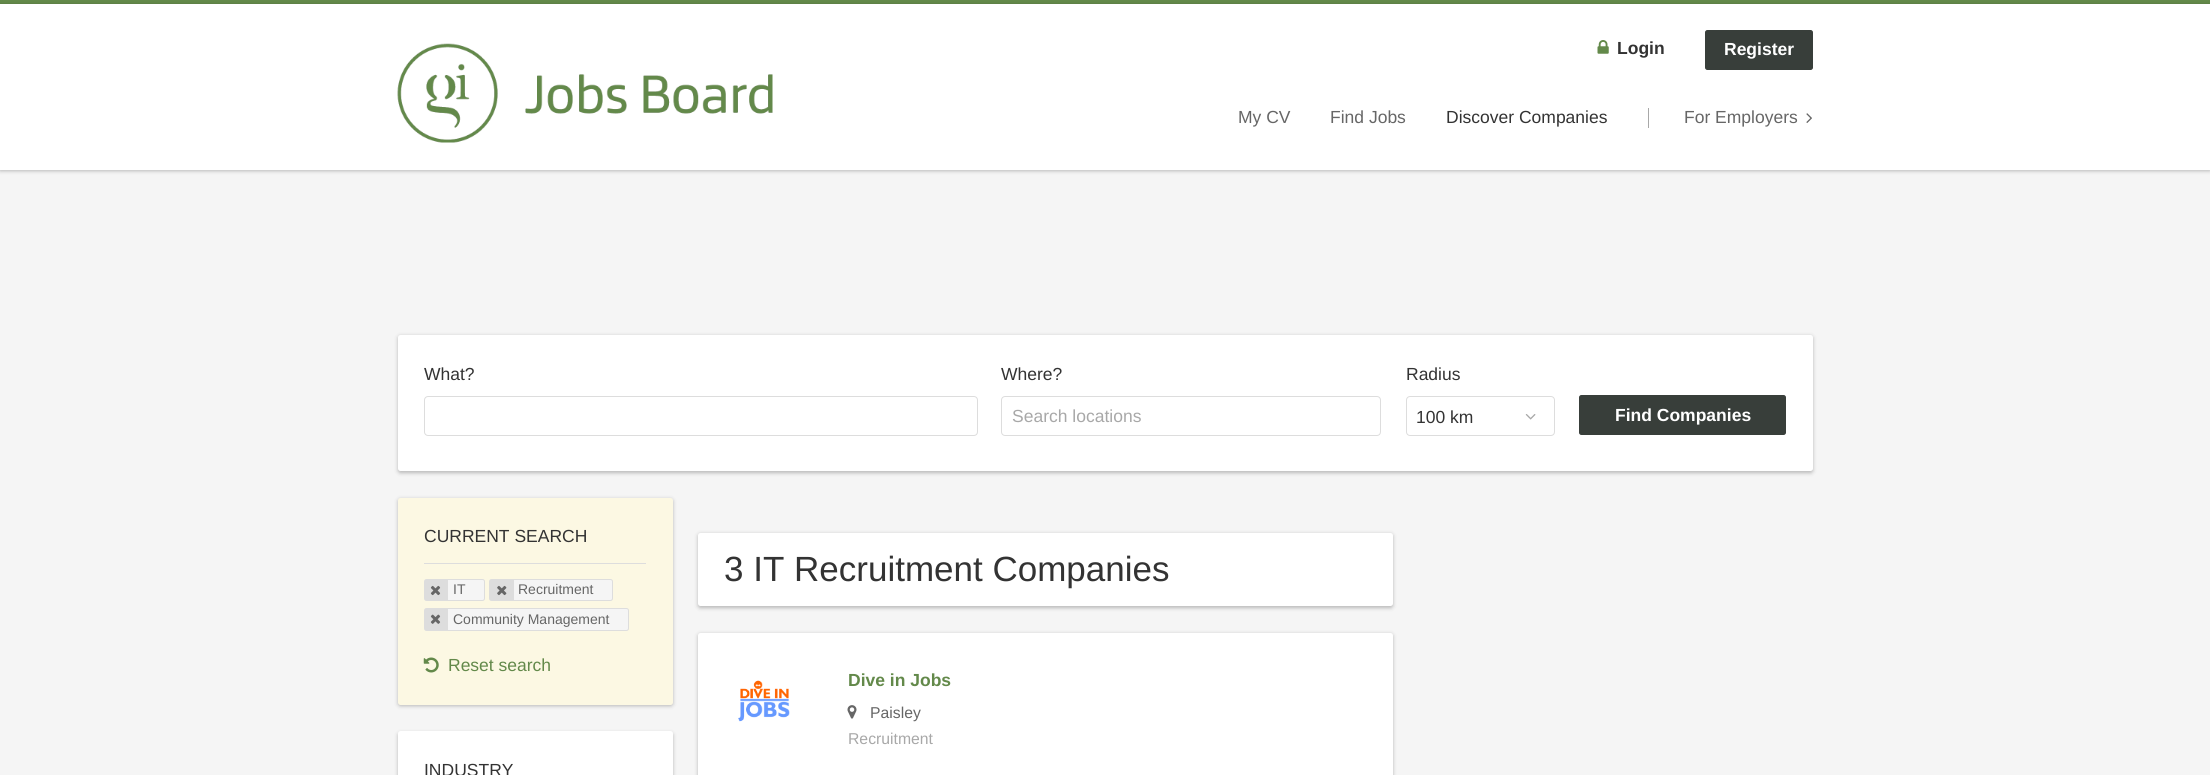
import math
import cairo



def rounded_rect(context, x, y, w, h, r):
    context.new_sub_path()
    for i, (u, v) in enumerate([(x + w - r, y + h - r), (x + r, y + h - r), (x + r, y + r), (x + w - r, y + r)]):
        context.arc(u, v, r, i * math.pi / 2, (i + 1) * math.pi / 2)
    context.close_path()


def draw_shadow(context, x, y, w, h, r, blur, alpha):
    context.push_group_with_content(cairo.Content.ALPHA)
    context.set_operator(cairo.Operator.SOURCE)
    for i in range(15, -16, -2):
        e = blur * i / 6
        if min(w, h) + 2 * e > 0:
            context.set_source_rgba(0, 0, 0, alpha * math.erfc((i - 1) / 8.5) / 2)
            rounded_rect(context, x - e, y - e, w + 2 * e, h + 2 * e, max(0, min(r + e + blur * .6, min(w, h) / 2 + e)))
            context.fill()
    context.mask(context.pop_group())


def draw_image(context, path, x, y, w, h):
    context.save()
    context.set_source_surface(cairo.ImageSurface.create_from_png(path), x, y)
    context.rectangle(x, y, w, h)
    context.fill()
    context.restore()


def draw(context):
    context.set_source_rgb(245 / 255, 245 / 255, 245 / 255)
    context.paint()
    context.set_source_rgb(99 / 255, 137 / 255, 74 / 255)
    context.rectangle(0, 0, 2210, 4)
    context.fill()
    context.set_source_rgb(0, 0, 0)
    draw_shadow(context, 0, 5, 2210, 166, 0, 2, 0.25)
    context.set_source_rgb(1, 1, 1)
    context.rectangle(0, 4, 2210, 166)
    context.fill()
    draw_image(context, "images/1.png", 397, 43, 376, 100)
    draw_image(context, "images/2.png", 1597, 40, 12, 14)
    context.set_source_rgb(56 / 255, 62 / 255, 58 / 255)
    rounded_rect(context, 1705.5, 30.5, 107, 39, 2)
    context.fill_preserve()
    context.set_line_width(1)
    context.stroke()
    context.set_source_rgb(168 / 255, 168 / 255, 168 / 255)
    context.rectangle(1648, 108, 1, 20)
    context.fill()
    draw_image(context, "images/3.png", 1806, 113, 6, 10)
    context.set_source_rgb(0, 0, 0)
    draw_shadow(context, 398, 336, 1415, 137, 2.5, 2, 0.25)
    context.set_source_rgb(1, 1, 1)
    rounded_rect(context, 398, 335, 1415, 136, 2.5)
    context.fill()
    rounded_rect(context, 424.5, 396.5, 553, 39, 3.5)
    context.set_source_rgb(221 / 255, 221 / 255, 221 / 255)
    context.stroke()
    rounded_rect(context, 1001.5, 396.5, 379, 39, 3.5)
    context.stroke()
    rounded_rect(context, 1406.5, 396.5, 148, 39, 3.5)
    context.stroke()
    draw_image(context, "images/4.png", 1525, 414, 11, 6)
    context.set_source_rgb(56 / 255, 62 / 255, 58 / 255)
    rounded_rect(context, 1579.5, 395.5, 206, 39, 2)
    context.fill_preserve()
    context.stroke()
    context.set_source_rgb(0, 0, 0)
    draw_shadow(context, 398, 499, 275, 207, 2.5, 2, 0.25)
    context.set_source_rgb(252 / 255, 248 / 255, 227 / 255)
    rounded_rect(context, 398, 498, 275, 207, 2.5)
    context.fill()
    context.set_source_rgb(221 / 255, 221 / 255, 221 / 255)
    context.rectangle(424, 563, 222, 1)
    context.fill()
    context.set_source_rgb(245 / 255, 245 / 255, 245 / 255)
    rounded_rect(context, 424.5, 579.5, 60, 21, 2)
    context.fill_preserve()
    context.set_source_rgb(221 / 255, 221 / 255, 221 / 255)
    context.stroke()
    context.rectangle(425, 580, 23, 20)
    context.fill()
    draw_image(context, "images/5.png", 430, 585, 11, 11)
    context.set_source_rgb(245 / 255, 245 / 255, 245 / 255)
    rounded_rect(context, 489.5, 579.5, 123, 21, 2)
    context.fill_preserve()
    context.set_source_rgb(221 / 255, 221 / 255, 221 / 255)
    context.stroke()
    context.rectangle(490, 580, 24, 20)
    context.fill()
    draw_image(context, "images/6.png", 497, 585, 10, 11)
    context.set_source_rgb(245 / 255, 245 / 255, 245 / 255)
    rounded_rect(context, 424.5, 608.5, 204, 22, 2)
    context.fill_preserve()
    context.set_source_rgb(221 / 255, 221 / 255, 221 / 255)
    context.stroke()
    context.rectangle(425, 609, 23, 21)
    context.fill()
    draw_image(context, "images/7.png", 430, 614, 11, 10)
    draw_image(context, "images/8.png", 423, 657, 16, 16)
    context.set_source_rgb(0, 0, 0)
    draw_shadow(context, 398, 733, 275, 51, 2.5, 2, 0.25)
    context.set_source_rgb(1, 1, 1)
    rounded_rect(context, 398, 731, 275, 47, 2.5)
    context.fill()
    context.set_source_rgb(0, 0, 0)
    draw_shadow(context, 698, 534, 695, 74, 2.5, 2, 0.25)
    context.set_source_rgb(1, 1, 1)
    rounded_rect(context, 698, 533, 695, 73, 2.5)
    context.fill()
    context.set_source_rgb(0, 0, 0)
    draw_shadow(context, 698, 634, 695, 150, 2.5, 2, 0.25)
    context.set_source_rgb(1, 1, 1)
    rounded_rect(context, 698, 633, 695, 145, 2.5)
    context.fill()
    draw_image(context, "images/9.png", 738, 680, 52, 42)
    draw_image(context, "images/10.png", 847, 705, 10, 14)
    context.select_font_face("Liberation Sans", cairo.FontSlant.NORMAL, cairo.FontWeight.BOLD)
    context.set_font_size(17.5)
    context.set_source_rgb(51 / 255, 51 / 255, 51 / 255)
    context.move_to(1617, 54)
    context.show_text("Login")
    context.set_source_rgb(1, 1, 1)
    context.move_to(1724, 55)
    context.show_text("Register")
    context.select_font_face("Liberation Sans")
    context.set_source_rgb(102 / 255, 102 / 255, 102 / 255)
    context.move_to(1238, 123)
    context.show_text("My CV")
    context.move_to(1330, 123)
    context.show_text("Find Jobs")
    context.set_source_rgb(51 / 255, 51 / 255, 51 / 255)
    context.move_to(1446, 123)
    context.show_text("Discover Companies")
    context.set_source_rgb(102 / 255, 102 / 255, 102 / 255)
    context.move_to(1684, 123)
    context.show_text("For Employers")
    context.set_source_rgb(51 / 255, 51 / 255, 51 / 255)
    context.move_to(424, 380)
    context.show_text("What?")
    context.move_to(1001, 380)
    context.show_text("Where?")
    context.set_source_rgb(168 / 255, 168 / 255, 168 / 255)
    context.move_to(1012, 422)
    context.show_text("Search locations")
    context.set_source_rgb(51 / 255, 51 / 255, 51 / 255)
    context.move_to(1406, 380)
    context.show_text("Radius")
    context.move_to(1416, 423)
    context.show_text("100 km")
    context.select_font_face("Liberation Sans", cairo.FontSlant.NORMAL, cairo.FontWeight.BOLD)
    context.set_source_rgb(1, 1, 1)
    context.move_to(1615, 421)
    context.show_text("Find Companies")
    context.select_font_face("Liberation Sans")
    context.set_source_rgb(51 / 255, 51 / 255, 51 / 255)
    context.move_to(424, 542)
    context.show_text("CURRENT SEARCH")
    context.set_font_size(14)
    context.set_source_rgb(102 / 255, 102 / 255, 102 / 255)
    context.move_to(453, 594)
    context.show_text("IT")
    context.move_to(518, 594)
    context.show_text("Recruitment")
    context.move_to(453, 624)
    context.show_text("Community Management")
    context.set_font_size(17.5)
    context.set_source_rgb(99 / 255, 137 / 255, 74 / 255)
    context.move_to(448, 671)
    context.show_text("Reset search")
    context.set_source_rgb(51 / 255, 51 / 255, 51 / 255)
    context.move_to(424, 776)
    context.show_text("INDUSTRY")
    context.set_font_size(35)
    context.move_to(724, 581)
    context.show_text("3 IT Recruitment Companies")
    context.select_font_face("Liberation Sans", cairo.FontSlant.NORMAL, cairo.FontWeight.BOLD)
    context.set_font_size(17.5)
    context.set_source_rgb(99 / 255, 137 / 255, 74 / 255)
    context.move_to(848, 686)
    context.show_text("Dive in Jobs")
    context.select_font_face("Liberation Sans")
    context.set_font_size(15.75)
    context.set_source_rgb(102 / 255, 102 / 255, 102 / 255)
    context.move_to(870, 718)
    context.show_text("Paisley")
    context.set_source_rgb(168 / 255, 168 / 255, 168 / 255)
    context.move_to(848, 744)
    context.show_text("Recruitment")


surface = cairo.ImageSurface(cairo.Format.RGB24, 2210, 775)
context = cairo.Context(surface)
options = cairo.FontOptions()
options.set_hint_metrics(cairo.HintMetrics.OFF)
options.set_hint_style(cairo.HintStyle.NONE)
context.set_font_options(options)
context.set_miter_limit(4)
draw(context)
surface.write_to_png("out.png")
